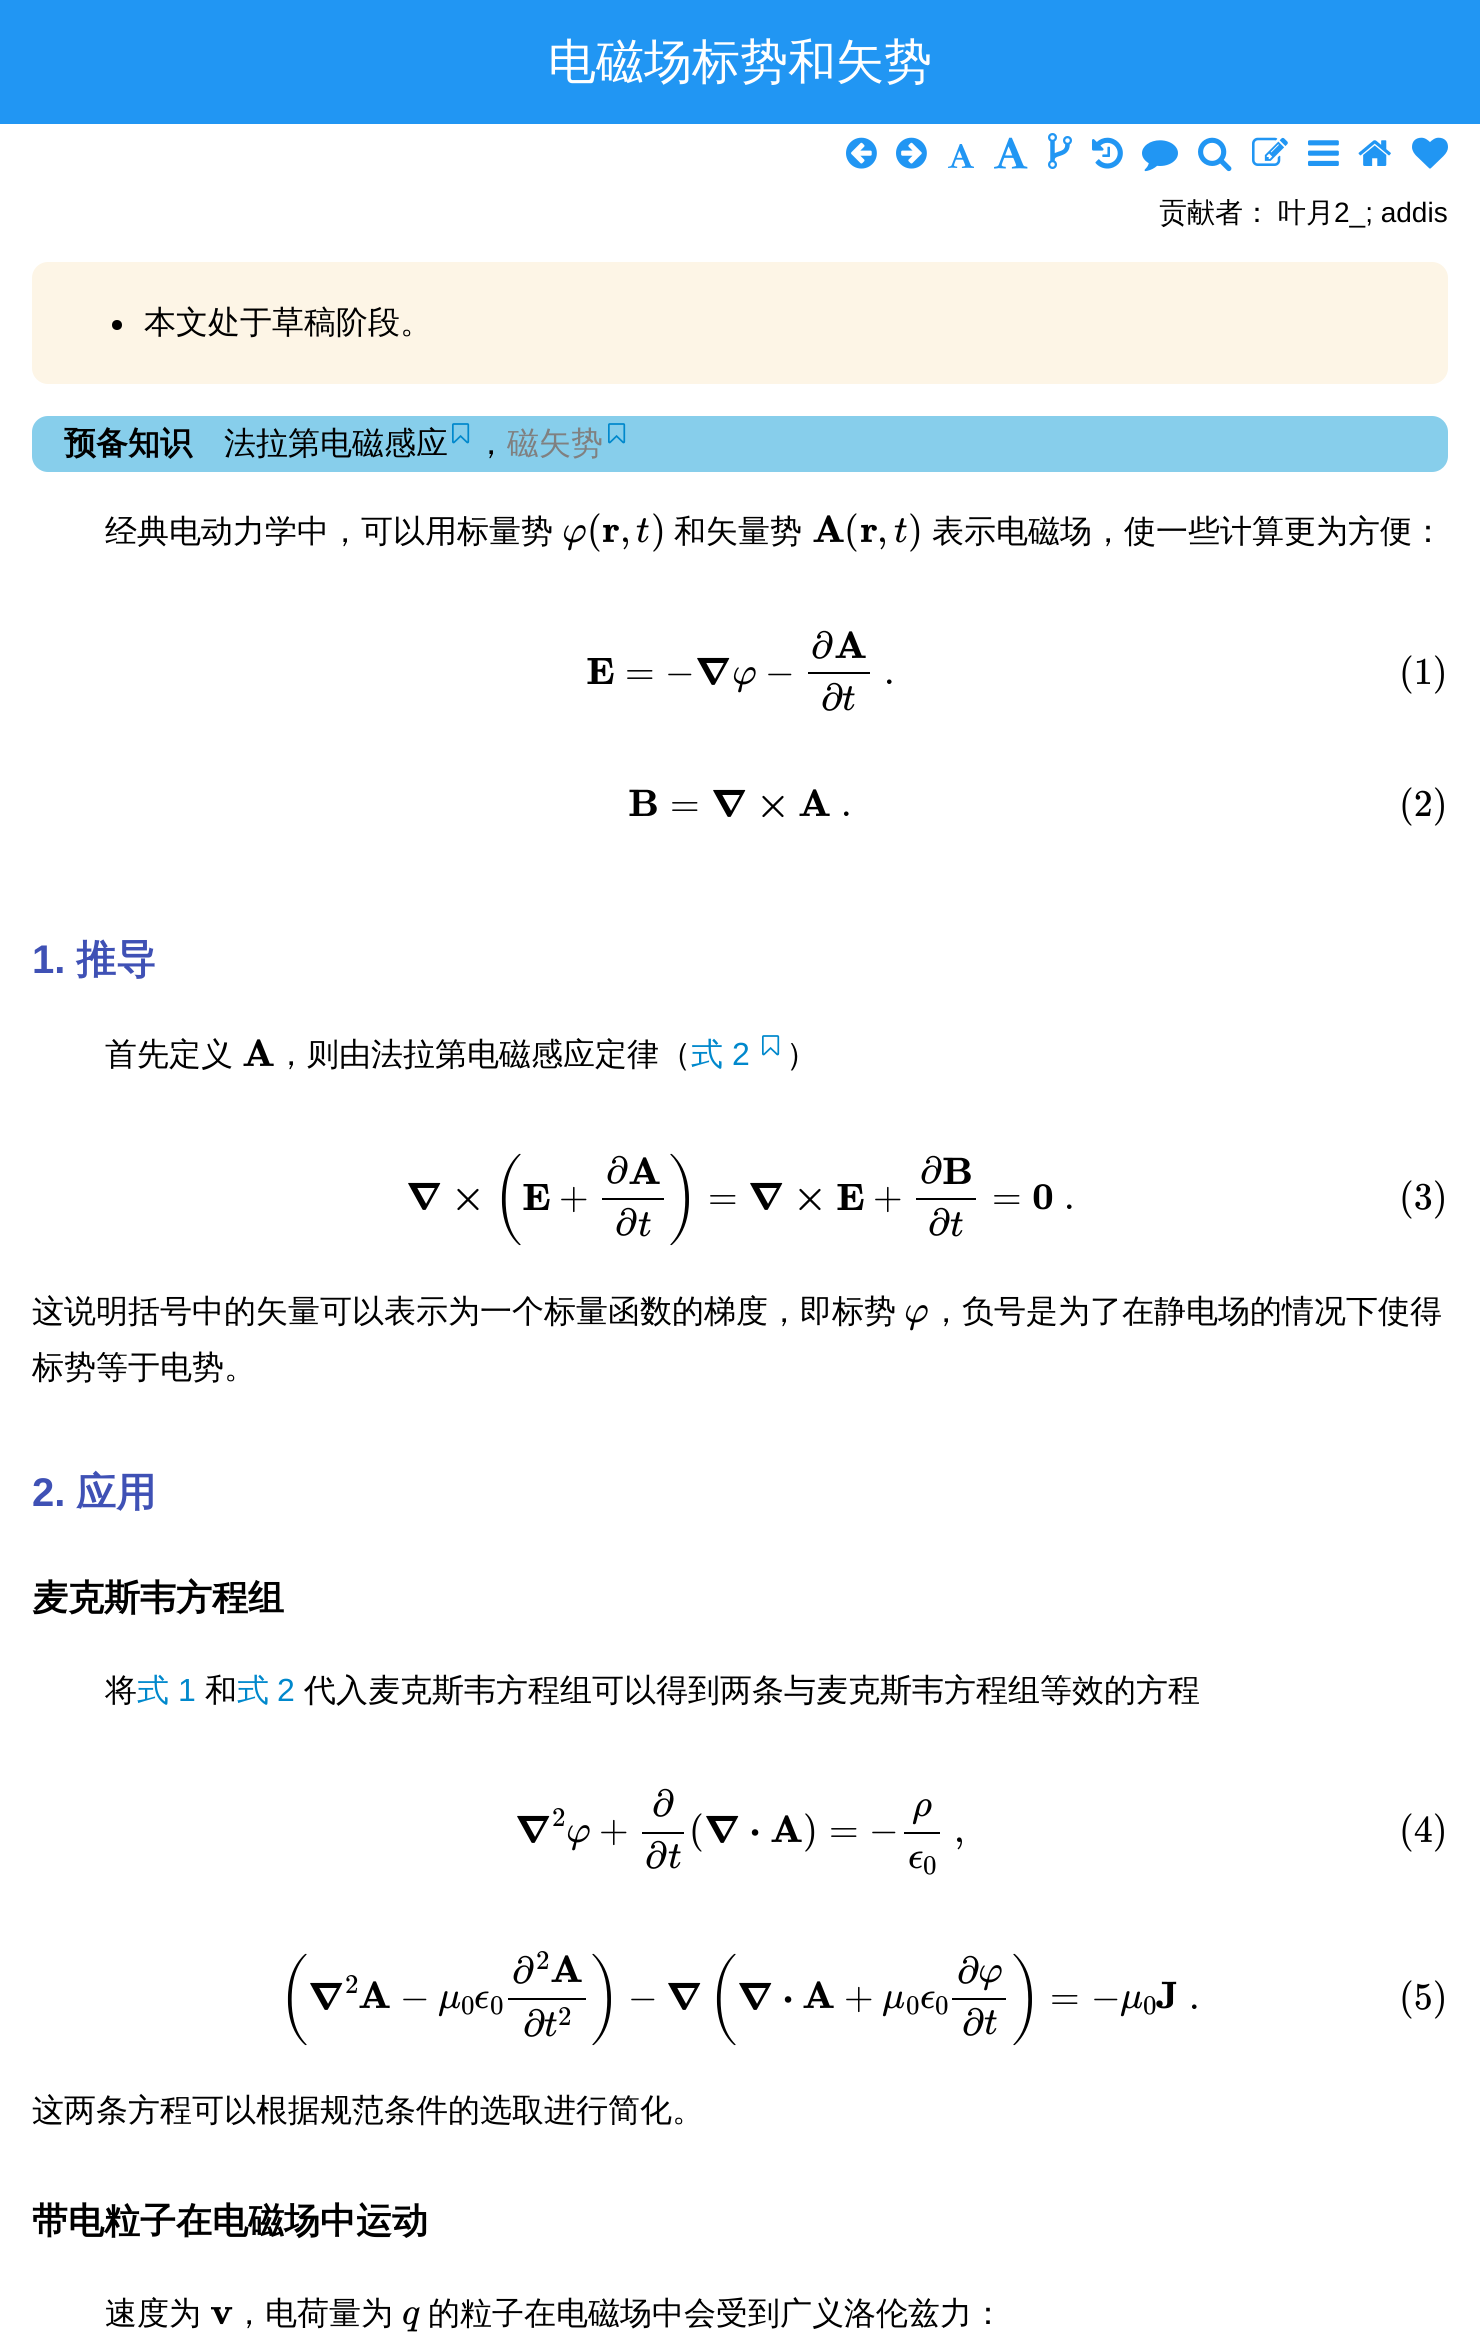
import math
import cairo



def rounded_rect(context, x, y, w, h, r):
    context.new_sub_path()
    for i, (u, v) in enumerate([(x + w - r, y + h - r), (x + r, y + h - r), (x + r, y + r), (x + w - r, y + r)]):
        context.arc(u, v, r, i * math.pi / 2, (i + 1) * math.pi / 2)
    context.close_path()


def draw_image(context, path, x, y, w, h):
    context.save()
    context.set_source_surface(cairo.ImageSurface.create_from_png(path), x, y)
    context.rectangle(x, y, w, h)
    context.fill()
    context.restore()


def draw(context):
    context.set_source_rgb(1, 1, 1)
    context.paint()
    context.set_source_rgb(33 / 255, 150 / 255, 243 / 255)
    context.rectangle(0, 0, 1480, 124)
    context.fill()
    draw_image(context, "images/1.png", 846, 137, 31, 32)
    draw_image(context, "images/2.png", 896, 137, 31, 32)
    draw_image(context, "images/3.png", 948, 144, 26, 24)
    draw_image(context, "images/4.png", 994, 137, 34, 32)
    draw_image(context, "images/5.png", 1048, 133, 24, 36)
    draw_image(context, "images/6.png", 1092, 137, 31, 32)
    draw_image(context, "images/7.png", 1142, 140, 36, 32)
    draw_image(context, "images/8.png", 1198, 137, 34, 35)
    draw_image(context, "images/9.png", 1252, 137, 36, 29)
    draw_image(context, "images/10.png", 1308, 140, 31, 26)
    draw_image(context, "images/11.png", 1358, 140, 33, 26)
    draw_image(context, "images/12.png", 1412, 137, 36, 32)
    context.set_source_rgb(253 / 255, 245 / 255, 230 / 255)
    rounded_rect(context, 32, 262, 1416, 122, 16)
    context.fill()
    context.set_source_rgb(0, 0, 0)
    context.arc(117, 325, 5, 0, 2 * math.pi)
    context.fill()
    context.set_source_rgb(135 / 255, 206 / 255, 235 / 255)
    rounded_rect(context, 32, 416, 1416, 56, 16)
    context.fill()
    draw_image(context, "images/13.png", 452, 423, 18, 21)
    draw_image(context, "images/13.png", 608, 423, 18, 21)
    draw_image(context, "images/14.png", 563, 525, 23, 26)
    draw_image(context, "images/15.png", 603, 524, 16, 18)
    draw_image(context, "images/16.png", 636, 518, 13, 25)
    draw_image(context, "images/17.png", 813, 515, 31, 27)
    draw_image(context, "images/15.png", 861, 524, 16, 18)
    draw_image(context, "images/16.png", 894, 518, 13, 25)
    draw_image(context, "images/18.png", 587, 658, 27, 26)
    draw_image(context, "images/14.png", 733, 667, 23, 26)
    draw_image(context, "images/17.png", 835, 631, 31, 27)
    context.set_source_rgb(0, 0, 0)
    context.rectangle(808, 672, 62, 2)
    context.fill()
    draw_image(context, "images/20.png", 629, 789, 28, 27)
    draw_image(context, "images/17.png", 799, 789, 31, 27)
    draw_image(context, "images/17.png", 243, 1039, 31, 27)
    draw_image(context, "images/21.png", 762, 1035, 18, 21)
    draw_image(context, "images/18.png", 523, 1184, 27, 26)
    draw_image(context, "images/17.png", 629, 1157, 31, 27)
    context.rectangle(602, 1198, 62, 2)
    context.fill()
    draw_image(context, "images/16.png", 638, 1212, 13, 25)
    draw_image(context, "images/18.png", 837, 1184, 27, 26)
    draw_image(context, "images/20.png", 943, 1157, 28, 27)
    context.rectangle(916, 1198, 60, 2)
    context.fill()
    draw_image(context, "images/14.png", 905, 1305, 23, 26)
    draw_image(context, "images/14.png", 567, 1825, 23, 26)
    context.rectangle(642, 1832, 42, 2)
    context.fill()
    draw_image(context, "images/16.png", 668, 1844, 13, 25)
    draw_image(context, "images/17.png", 771, 1815, 31, 27)
    draw_image(context, "images/23.png", 912, 1799, 20, 26)
    context.rectangle(904, 1832, 36, 2)
    context.fill()
    draw_image(context, "images/24.png", 909, 1851, 14, 18)
    draw_image(context, "images/17.png", 359, 1981, 31, 27)
    draw_image(context, "images/25.png", 438, 1991, 23, 26)
    draw_image(context, "images/24.png", 475, 1991, 14, 18)
    draw_image(context, "images/17.png", 551, 1955, 31, 27)
    context.rectangle(508, 1998, 78, 2)
    context.fill()
    draw_image(context, "images/17.png", 803, 1981, 31, 27)
    draw_image(context, "images/25.png", 882, 1991, 23, 26)
    draw_image(context, "images/24.png", 921, 1991, 14, 18)
    draw_image(context, "images/14.png", 979, 1965, 23, 26)
    context.rectangle(952, 1998, 54, 2)
    context.fill()
    draw_image(context, "images/16.png", 984, 2010, 13, 25)
    draw_image(context, "images/25.png", 1120, 1991, 23, 26)
    draw_image(context, "images/27.png", 1156, 1981, 21, 28)
    draw_image(context, "images/28.png", 211, 2307, 22, 18)
    draw_image(context, "images/29.png", 403, 2307, 17, 25)
    context.select_font_face("WenQuanYi Zen Hei Medium")
    context.set_font_size(48)
    context.set_source_rgb(1, 1, 1)
    context.move_to(548, 78)
    context.show_text("电磁场标势和矢势")
    context.set_font_size(28)
    context.set_source_rgb(0, 0, 0)
    context.move_to(1159, 222)
    context.show_text("贡献者：")
    context.move_to(1278, 222)
    context.show_text("叶月")
    context.select_font_face("Liberation Sans")
    context.move_to(1334, 222)
    context.show_text("2_; addis")
    context.select_font_face("WenQuanYi Zen Hei Medium")
    context.set_font_size(32)
    context.move_to(144, 333)
    context.show_text("本文处于草稿阶段。")
    context.select_font_face("WenQuanYi Zen Hei", cairo.FontSlant.NORMAL, cairo.FontWeight.BOLD)
    context.move_to(64, 454)
    context.show_text("预备知识")
    context.select_font_face("WenQuanYi Zen Hei Medium")
    context.move_to(224, 454)
    context.show_text("法拉第电磁感应")
    context.move_to(475, 454)
    context.show_text("，")
    context.set_source_rgb(128 / 255, 128 / 255, 128 / 255)
    context.move_to(507, 454)
    context.show_text("磁矢势")
    context.set_source_rgb(0, 0, 0)
    context.move_to(105, 542)
    context.show_text("经典电动力学中，可以用标量势")
    context.select_font_face("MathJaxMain")
    context.set_font_size(38)
    context.move_to(587, 542)
    context.show_text("(")
    context.move_to(620, 542)
    context.show_text(",")
    context.move_to(651, 542)
    context.show_text(")")
    context.select_font_face("WenQuanYi Zen Hei Medium")
    context.set_font_size(32)
    context.move_to(674, 542)
    context.show_text("和矢量势")
    context.select_font_face("MathJaxMain")
    context.set_font_size(38)
    context.move_to(844, 542)
    context.show_text("(")
    context.move_to(908, 542)
    context.show_text(")")
    context.move_to(877, 542)
    context.show_text(",")
    context.select_font_face("WenQuanYi Zen Hei Medium")
    context.set_font_size(32)
    context.move_to(932, 542)
    context.show_text("表示电磁场，使一些计算更为方便：")
    context.select_font_face("MathJaxMain")
    context.set_font_size(38)
    context.move_to(625, 684)
    context.show_text("=")
    context.move_to(665, 684)
    context.show_text("−")
    context.select_font_face("MathJaxMain", cairo.FontSlant.NORMAL, cairo.FontWeight.BOLD)
    context.move_to(695, 684)
    context.show_text("∇")
    context.select_font_face("MathJaxMain")
    context.move_to(765, 684)
    context.show_text("−")
    context.move_to(811, 658)
    context.show_text("∂")
    context.move_to(821, 710)
    context.show_text("∂")
    draw_image(context, "images/19.png", 842, 686, 13, 25)
    context.move_to(884, 684)
    context.show_text(".")
    context.move_to(1399, 684)
    context.show_text("(1)")
    context.move_to(670, 816)
    context.show_text("=")
    context.select_font_face("MathJaxMain", cairo.FontSlant.NORMAL, cairo.FontWeight.BOLD)
    context.move_to(711, 816)
    context.show_text("∇")
    context.move_to(756, 816)
    context.show_text("×")
    context.select_font_face("MathJaxMain")
    context.move_to(841, 816)
    context.show_text(".")
    context.move_to(1399, 816)
    context.show_text("(2)")
    context.select_font_face("Liberation Sans", cairo.FontSlant.NORMAL, cairo.FontWeight.BOLD)
    context.set_font_size(40)
    context.set_source_rgb(63 / 255, 81 / 255, 181 / 255)
    context.move_to(32, 973)
    context.show_text("1.")
    context.select_font_face("WenQuanYi Zen Hei", cairo.FontSlant.NORMAL, cairo.FontWeight.BOLD)
    context.move_to(76, 973)
    context.show_text("推导")
    context.select_font_face("WenQuanYi Zen Hei Medium")
    context.set_font_size(32)
    context.set_source_rgb(0, 0, 0)
    context.move_to(105, 1065)
    context.show_text("首先定义")
    context.move_to(275, 1065)
    context.show_text("，则由法拉第电磁感应定律（")
    context.set_source_rgb(0, 136 / 255, 204 / 255)
    context.move_to(691, 1065)
    context.show_text("式")
    context.select_font_face("Liberation Sans")
    context.move_to(732, 1065)
    context.show_text("2")
    context.select_font_face("WenQuanYi Zen Hei Medium")
    context.set_source_rgb(0, 0, 0)
    context.move_to(786, 1065)
    context.show_text("）")
    context.select_font_face("MathJaxMain", cairo.FontSlant.NORMAL, cairo.FontWeight.BOLD)
    context.set_font_size(38)
    context.move_to(406, 1209)
    context.show_text("∇")
    context.move_to(451, 1209)
    context.show_text("×")
    context.select_font_face("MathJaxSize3")
    context.move_to(494, 1209)
    context.show_text("(")
    context.select_font_face("MathJaxMain")
    context.move_to(559, 1209)
    context.show_text("+")
    context.move_to(606, 1183)
    context.show_text("∂")
    context.move_to(615, 1235)
    context.show_text("∂")
    context.select_font_face("MathJaxSize3")
    context.move_to(669, 1209)
    context.show_text(")")
    context.select_font_face("MathJaxMain")
    context.move_to(708, 1209)
    context.show_text("=")
    context.select_font_face("MathJaxMain", cairo.FontSlant.NORMAL, cairo.FontWeight.BOLD)
    context.move_to(748, 1209)
    context.show_text("∇")
    context.move_to(793, 1209)
    context.show_text("×")
    context.select_font_face("MathJaxMain")
    context.move_to(873, 1209)
    context.show_text("+")
    context.move_to(920, 1183)
    context.show_text("∂")
    context.move_to(928, 1235)
    context.show_text("∂")
    draw_image(context, "images/22.png", 950, 1212, 13, 25)
    context.move_to(992, 1209)
    context.show_text("=")
    context.select_font_face("MathJaxMain", cairo.FontSlant.NORMAL, cairo.FontWeight.BOLD)
    context.move_to(1032, 1209)
    context.show_text("0")
    context.select_font_face("MathJaxMain")
    context.move_to(1064, 1209)
    context.show_text(".")
    context.move_to(1399, 1209)
    context.show_text("(3)")
    context.select_font_face("WenQuanYi Zen Hei Medium")
    context.set_font_size(32)
    context.move_to(32, 1322)
    context.show_text("这说明括号中的矢量可以表示为一个标量函数的梯度，即标势")
    context.move_to(930, 1322)
    context.show_text("，负号是为了在静电场的情况下使得")
    context.move_to(32, 1378)
    context.show_text("标势等于电势。")
    context.select_font_face("Liberation Sans", cairo.FontSlant.NORMAL, cairo.FontWeight.BOLD)
    context.set_font_size(40)
    context.set_source_rgb(63 / 255, 81 / 255, 181 / 255)
    context.move_to(32, 1506)
    context.show_text("2.")
    context.select_font_face("WenQuanYi Zen Hei", cairo.FontSlant.NORMAL, cairo.FontWeight.BOLD)
    context.move_to(76, 1506)
    context.show_text("应用")
    context.set_font_size(36)
    context.set_source_rgb(0, 0, 0)
    context.move_to(32, 1610)
    context.show_text("麦克斯韦方程组")
    context.select_font_face("WenQuanYi Zen Hei Medium")
    context.set_font_size(32)
    context.move_to(105, 1701)
    context.show_text("将")
    context.set_source_rgb(0, 136 / 255, 204 / 255)
    context.move_to(137, 1701)
    context.show_text("式")
    context.select_font_face("Liberation Sans")
    context.move_to(178, 1701)
    context.show_text("1")
    context.select_font_face("WenQuanYi Zen Hei Medium")
    context.set_source_rgb(0, 0, 0)
    context.move_to(205, 1701)
    context.show_text("和")
    context.set_source_rgb(0, 136 / 255, 204 / 255)
    context.move_to(237, 1701)
    context.show_text("式")
    context.select_font_face("Liberation Sans")
    context.move_to(277, 1701)
    context.show_text("2")
    context.select_font_face("WenQuanYi Zen Hei Medium")
    context.set_source_rgb(0, 0, 0)
    context.move_to(304, 1701)
    context.show_text("代入麦克斯韦方程组可以得到两条与麦克斯韦方程组等效的方程")
    context.select_font_face("MathJaxMain", cairo.FontSlant.NORMAL, cairo.FontWeight.BOLD)
    context.set_font_size(38)
    context.move_to(515, 1842)
    context.show_text("∇")
    context.select_font_face("MathJaxMain")
    context.set_font_size(27)
    context.move_to(552, 1826)
    context.show_text("2")
    context.set_font_size(38)
    context.move_to(599, 1842)
    context.show_text("+")
    context.move_to(652, 1816)
    context.show_text("∂")
    context.move_to(645, 1868)
    context.show_text("∂")
    context.move_to(689, 1842)
    context.show_text("(")
    context.select_font_face("MathJaxMain", cairo.FontSlant.NORMAL, cairo.FontWeight.BOLD)
    context.move_to(704, 1842)
    context.show_text("∇")
    context.move_to(749, 1842)
    context.show_text("⋅")
    context.select_font_face("MathJaxMain")
    context.move_to(803, 1842)
    context.show_text(")")
    context.move_to(829, 1842)
    context.show_text("=")
    context.move_to(869, 1842)
    context.show_text("−")
    context.move_to(954, 1842)
    context.show_text(",")
    context.set_font_size(27)
    context.move_to(923, 1874)
    context.show_text("0")
    context.set_font_size(38)
    context.move_to(1399, 1842)
    context.show_text("(4)")
    context.select_font_face("MathJaxSize3")
    context.move_to(280, 2009)
    context.show_text("(")
    context.select_font_face("MathJaxMain", cairo.FontSlant.NORMAL, cairo.FontWeight.BOLD)
    context.move_to(308, 2009)
    context.show_text("∇")
    context.select_font_face("MathJaxMain")
    context.set_font_size(27)
    context.move_to(345, 1993)
    context.show_text("2")
    context.set_font_size(38)
    context.move_to(400, 2009)
    context.show_text("−")
    context.set_font_size(27)
    context.move_to(461, 2014)
    context.show_text("0")
    context.move_to(490, 2014)
    context.show_text("0")
    context.set_font_size(38)
    context.move_to(512, 1983)
    context.show_text("∂")
    context.set_font_size(27)
    context.move_to(536, 1969)
    context.show_text("2")
    context.set_font_size(38)
    context.move_to(523, 2036)
    context.show_text("∂")
    draw_image(context, "images/26.png", 544, 2012, 13, 25)
    context.set_font_size(27)
    context.move_to(558, 2025)
    context.show_text("2")
    context.select_font_face("MathJaxSize3")
    context.set_font_size(38)
    context.move_to(591, 2009)
    context.show_text(")")
    context.select_font_face("MathJaxMain")
    context.move_to(628, 2009)
    context.show_text("−")
    context.select_font_face("MathJaxMain", cairo.FontSlant.NORMAL, cairo.FontWeight.BOLD)
    context.move_to(666, 2009)
    context.show_text("∇")
    context.select_font_face("MathJaxSize3")
    context.move_to(709, 2009)
    context.show_text("(")
    context.select_font_face("MathJaxMain", cairo.FontSlant.NORMAL, cairo.FontWeight.BOLD)
    context.move_to(737, 2009)
    context.show_text("∇")
    context.move_to(782, 2009)
    context.show_text("⋅")
    context.select_font_face("MathJaxMain")
    context.move_to(844, 2009)
    context.show_text("+")
    context.set_font_size(27)
    context.move_to(906, 2014)
    context.show_text("0")
    context.move_to(935, 2014)
    context.show_text("0")
    context.set_font_size(38)
    context.move_to(957, 1983)
    context.show_text("∂")
    context.move_to(962, 2035)
    context.show_text("∂")
    context.select_font_face("MathJaxSize3")
    context.move_to(1012, 2009)
    context.show_text(")")
    context.select_font_face("MathJaxMain")
    context.move_to(1050, 2009)
    context.show_text("=")
    context.move_to(1091, 2009)
    context.show_text("−")
    context.set_font_size(27)
    context.move_to(1143, 2014)
    context.show_text("0")
    context.set_font_size(38)
    context.move_to(1189, 2009)
    context.show_text(".")
    context.move_to(1399, 2009)
    context.show_text("(5)")
    context.select_font_face("WenQuanYi Zen Hei Medium")
    context.set_font_size(32)
    context.move_to(32, 2121)
    context.show_text("这两条方程可以根据规范条件的选取进行简化。")
    context.select_font_face("WenQuanYi Zen Hei", cairo.FontSlant.NORMAL, cairo.FontWeight.BOLD)
    context.set_font_size(36)
    context.move_to(32, 2233)
    context.show_text("带电粒子在电磁场中运动")
    context.select_font_face("WenQuanYi Zen Hei Medium")
    context.set_font_size(32)
    context.move_to(105, 2324)
    context.show_text("速度为")
    context.move_to(233, 2324)
    context.show_text("，电荷量为")
    context.move_to(428, 2324)
    context.show_text("的粒子在电磁场中会受到广义洛伦兹力：")


surface = cairo.ImageSurface(cairo.Format.RGB24, 1480, 2346)
context = cairo.Context(surface)
options = cairo.FontOptions()
options.set_hint_metrics(cairo.HintMetrics.OFF)
options.set_hint_style(cairo.HintStyle.NONE)
context.set_font_options(options)
context.set_miter_limit(4)
draw(context)
surface.write_to_png("out.png")
